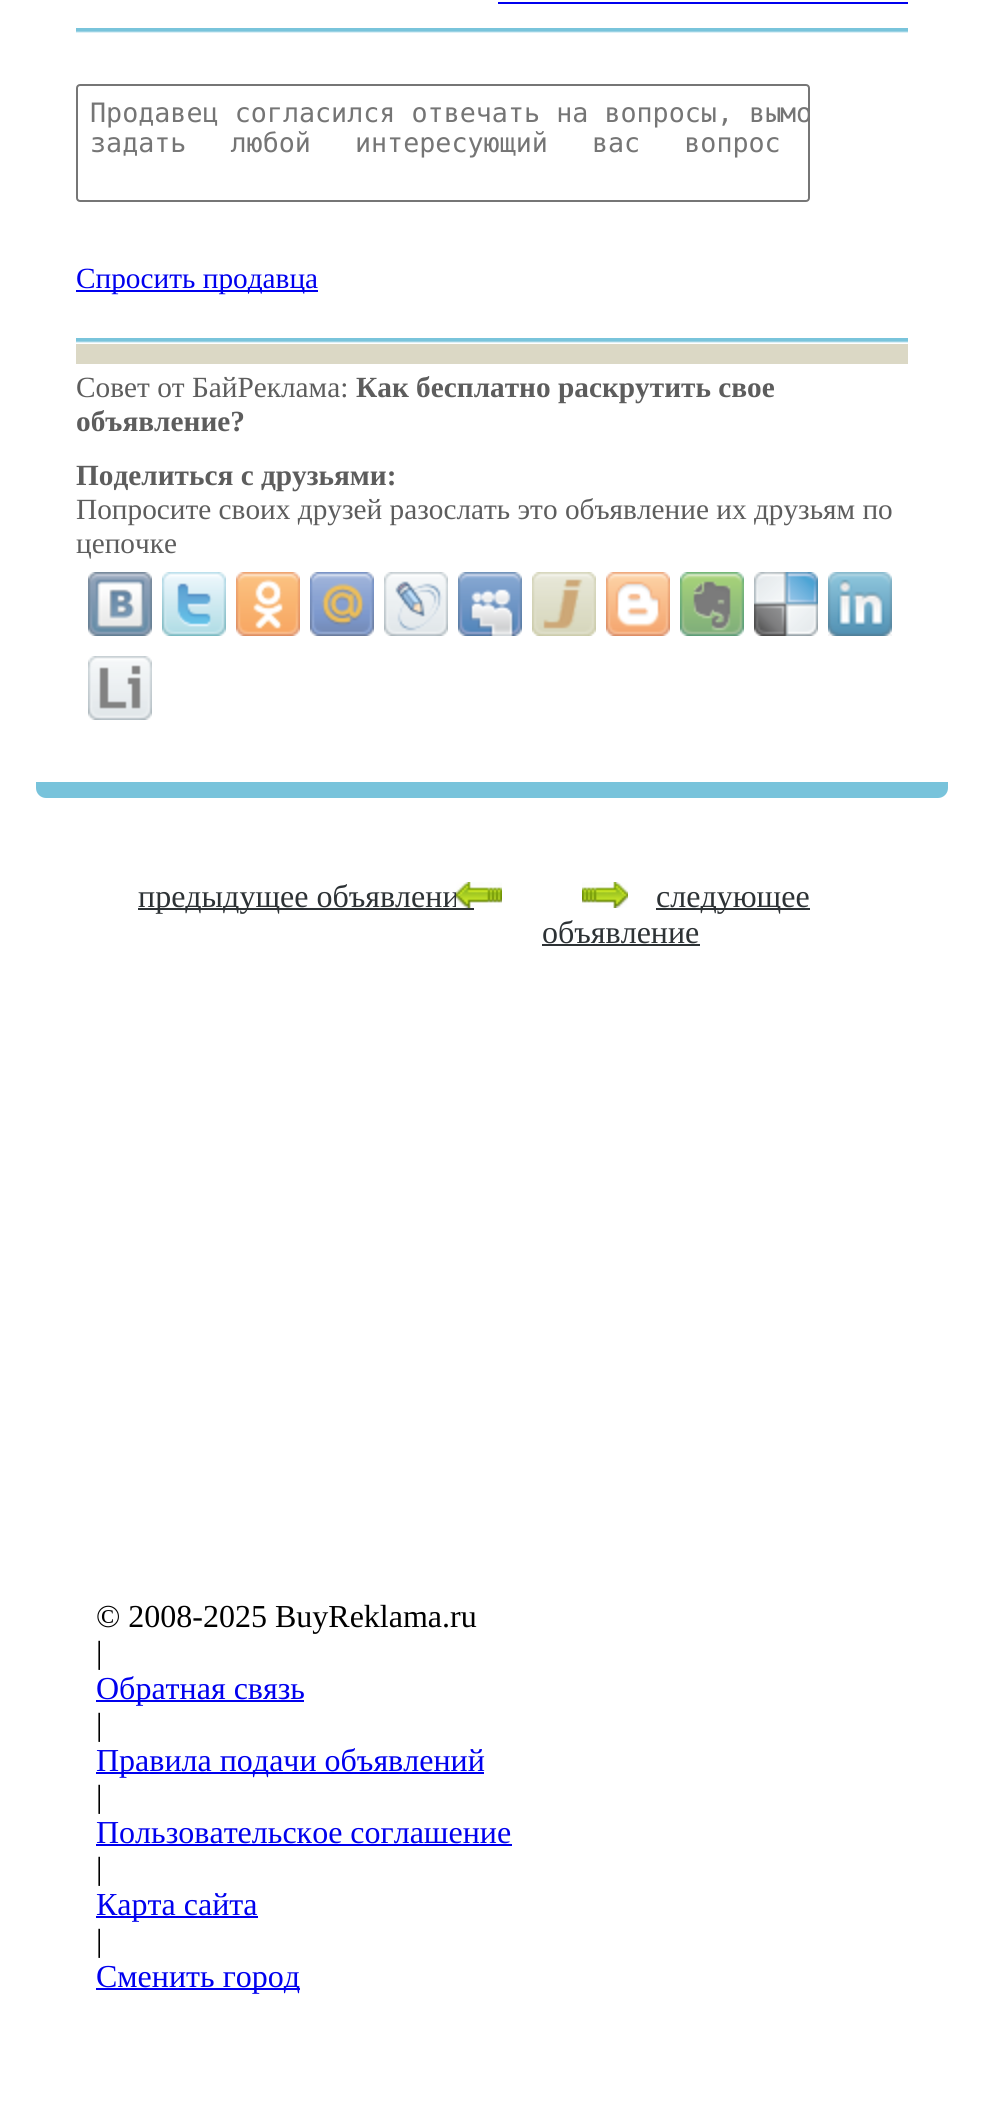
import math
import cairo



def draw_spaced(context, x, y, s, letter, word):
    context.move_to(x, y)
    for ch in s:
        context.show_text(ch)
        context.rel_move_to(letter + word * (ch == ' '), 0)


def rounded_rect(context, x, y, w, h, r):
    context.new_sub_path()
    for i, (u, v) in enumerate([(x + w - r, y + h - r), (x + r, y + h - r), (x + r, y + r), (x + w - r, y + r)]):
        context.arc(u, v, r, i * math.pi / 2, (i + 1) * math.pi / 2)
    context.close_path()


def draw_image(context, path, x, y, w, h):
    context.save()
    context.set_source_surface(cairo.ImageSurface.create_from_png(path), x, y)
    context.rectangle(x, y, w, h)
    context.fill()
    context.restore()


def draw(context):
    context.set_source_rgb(1, 1, 1)
    context.paint()
    context.set_source_rgb(0, 0, 238 / 255)
    context.rectangle(498, 2, 410, 2)
    context.fill()
    draw_image(context, "images/1.png", 76, 28, 832, 5)
    rounded_rect(context, 77, 85, 732, 116, 3)
    context.set_source_rgb(118 / 255, 118 / 255, 118 / 255)
    context.stroke()
    context.set_source_rgb(0, 0, 238 / 255)
    context.rectangle(76, 290, 242, 2)
    context.fill()
    context.set_source_rgb(219 / 255, 216 / 255, 197 / 255)
    context.rectangle(76, 344, 832, 20)
    context.fill()
    draw_image(context, "images/2.png", 76, 338, 832, 6)
    draw_image(context, "images/3.png", 88, 572, 64, 64)
    draw_image(context, "images/4.png", 162, 572, 64, 64)
    draw_image(context, "images/5.png", 236, 572, 64, 64)
    draw_image(context, "images/6.png", 310, 572, 64, 64)
    draw_image(context, "images/7.png", 384, 572, 64, 64)
    draw_image(context, "images/8.png", 458, 572, 64, 64)
    draw_image(context, "images/9.png", 532, 572, 64, 64)
    draw_image(context, "images/10.png", 606, 572, 64, 64)
    draw_image(context, "images/11.png", 680, 572, 64, 64)
    draw_image(context, "images/12.png", 754, 572, 64, 64)
    draw_image(context, "images/13.png", 828, 572, 64, 64)
    draw_image(context, "images/14.png", 88, 656, 64, 64)
    context.set_source_rgb(120 / 255, 195 / 255, 219 / 255)
    context.new_path()
    context.move_to(36, 782)
    context.line_to(948, 782)
    context.line_to(948, 788)
    context.curve_to(948, 793.5, 943.5, 798, 938, 798)
    context.line_to(46, 798)
    context.curve_to(40.5, 798, 36, 793.5, 36, 788)
    context.close_path()
    context.fill()
    context.set_source_rgb(45 / 255, 50 / 255, 53 / 255)
    context.rectangle(138, 908, 336, 2)
    context.fill()
    draw_image(context, "images/16.png", 582, 882, 46, 26)
    context.rectangle(656, 908, 154, 2)
    context.fill()
    context.rectangle(542, 944, 158, 2)
    context.fill()
    context.set_source_rgb(0, 0, 238 / 255)
    context.rectangle(96, 1700, 208, 2)
    context.fill()
    context.rectangle(96, 1772, 388, 2)
    context.fill()
    context.rectangle(96, 1844, 416, 2)
    context.fill()
    context.rectangle(96, 1916, 162, 2)
    context.fill()
    context.rectangle(96, 1988, 204, 2)
    context.fill()
    context.select_font_face("DejaVu Sans Mono")
    context.set_font_size(26.7)
    context.set_source_rgb(117 / 255, 117 / 255, 117 / 255)
    context.move_to(90, 122)
    context.show_text("Продавец согласился отвечать на вопросы, вы")
    context.save()
    context.rectangle(78, 86, 730, 114)
    context.clip()
    context.move_to(780, 122)
    context.show_text("мо")
    context.restore()
    draw_spaced(context, 90, 152, "задать любой интересующий вас вопрос", 0, 28)
    context.select_font_face("Liberation Serif")
    context.set_font_size(29.3)
    context.set_source_rgb(0, 0, 238 / 255)
    context.move_to(76, 288)
    context.show_text("Спросить продавца")
    context.set_source_rgb(93 / 255, 93 / 255, 93 / 255)
    context.move_to(76, 397)
    context.show_text("Совет от БайРеклама:")
    context.select_font_face("Liberation Serif", cairo.FontSlant.NORMAL, cairo.FontWeight.BOLD)
    context.move_to(356, 397)
    context.show_text("Как бесплатно раскрутить свое")
    context.move_to(76, 431)
    context.show_text("объявление?")
    context.move_to(76, 485)
    context.show_text("Поделиться с друзьями:")
    context.select_font_face("Liberation Serif")
    context.move_to(76, 519)
    context.show_text("Попросите своих друзей разослать это объявление их друзьям по")
    context.move_to(76, 553)
    context.show_text("цепочке")
    context.set_font_size(32)
    context.set_source_rgb(45 / 255, 50 / 255, 53 / 255)
    context.move_to(138, 907)
    context.show_text("предыдущее объявлени")
    draw_image(context, "images/15.png", 456, 882, 46, 26)
    context.move_to(656, 907)
    context.show_text("следующее")
    context.move_to(542, 943)
    context.show_text("объявление")
    context.set_source_rgb(0, 0, 0)
    context.move_to(96, 1627)
    context.show_text("© 2008-2025 BuyReklama.ru")
    context.move_to(96, 1663)
    context.show_text("|")
    context.set_source_rgb(0, 0, 238 / 255)
    context.move_to(96, 1699)
    context.show_text("Обратная связь")
    context.set_source_rgb(0, 0, 0)
    context.move_to(96, 1735)
    context.show_text("|")
    context.set_source_rgb(0, 0, 238 / 255)
    context.move_to(96, 1771)
    context.show_text("Правила подачи объявлений")
    context.set_source_rgb(0, 0, 0)
    context.move_to(96, 1807)
    context.show_text("|")
    context.set_source_rgb(0, 0, 238 / 255)
    context.move_to(96, 1843)
    context.show_text("Пoльзовательское соглашение")
    context.set_source_rgb(0, 0, 0)
    context.move_to(96, 1879)
    context.show_text("|")
    context.set_source_rgb(0, 0, 238 / 255)
    context.move_to(96, 1915)
    context.show_text("Карта сайта")
    context.set_source_rgb(0, 0, 0)
    context.move_to(96, 1951)
    context.show_text("|")
    context.set_source_rgb(0, 0, 238 / 255)
    context.move_to(96, 1987)
    context.show_text("Сменить город")


surface = cairo.ImageSurface(cairo.Format.RGB24, 984, 2109)
context = cairo.Context(surface)
options = cairo.FontOptions()
options.set_hint_metrics(cairo.HintMetrics.OFF)
options.set_hint_style(cairo.HintStyle.NONE)
context.set_font_options(options)
context.set_miter_limit(4)
draw(context)
surface.write_to_png("out.png")
